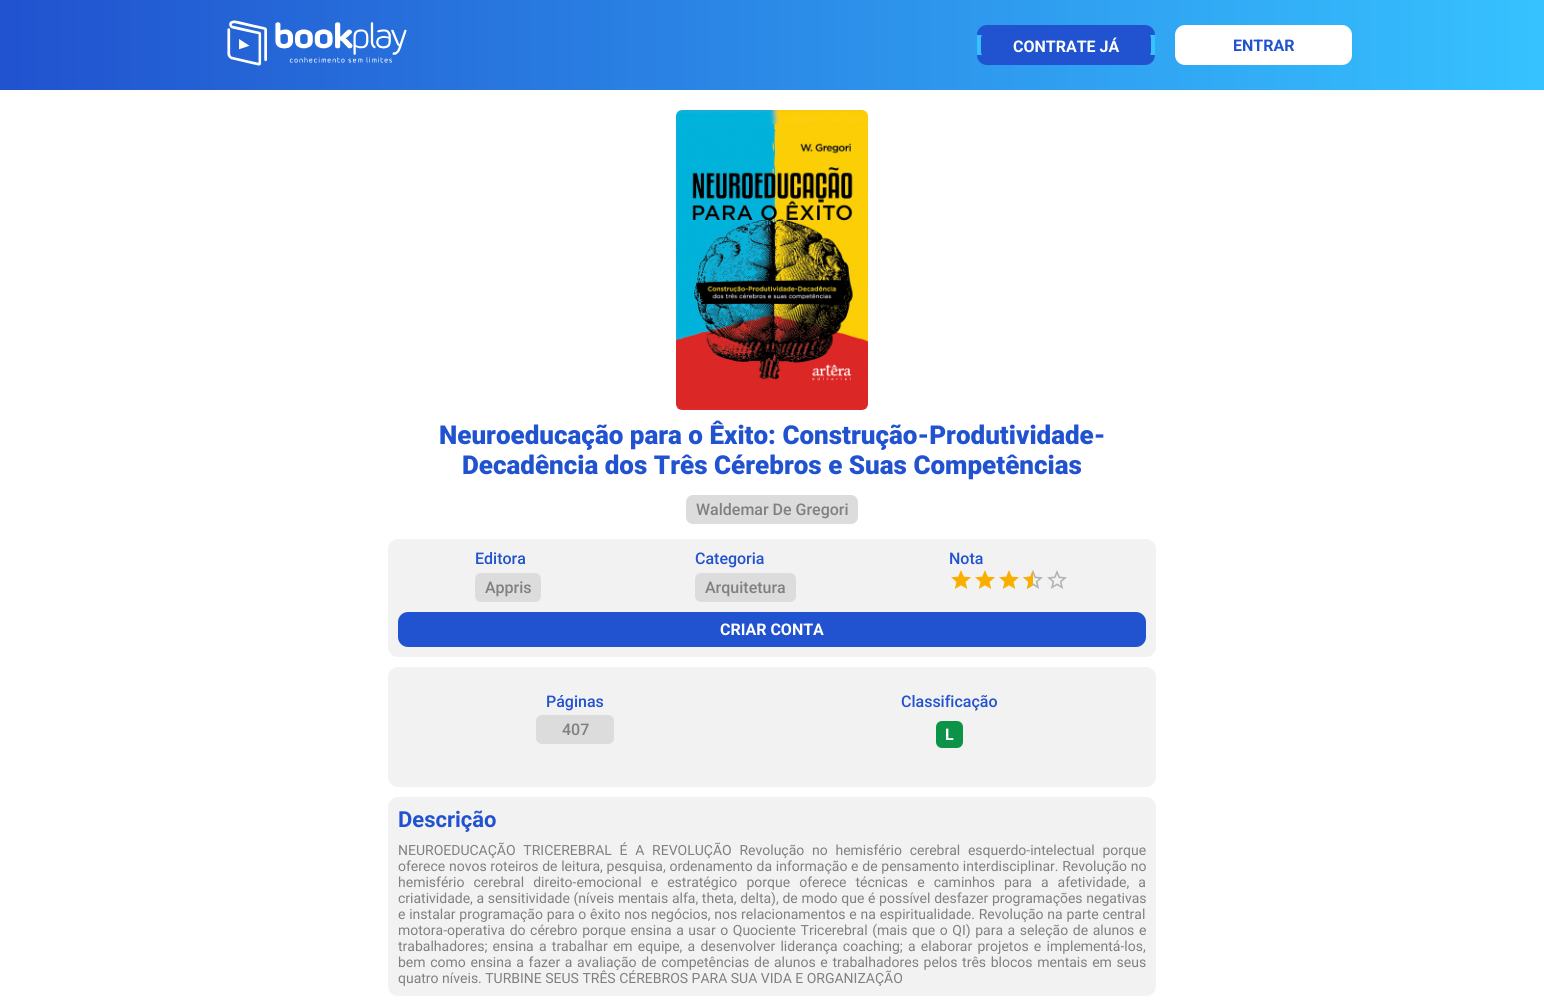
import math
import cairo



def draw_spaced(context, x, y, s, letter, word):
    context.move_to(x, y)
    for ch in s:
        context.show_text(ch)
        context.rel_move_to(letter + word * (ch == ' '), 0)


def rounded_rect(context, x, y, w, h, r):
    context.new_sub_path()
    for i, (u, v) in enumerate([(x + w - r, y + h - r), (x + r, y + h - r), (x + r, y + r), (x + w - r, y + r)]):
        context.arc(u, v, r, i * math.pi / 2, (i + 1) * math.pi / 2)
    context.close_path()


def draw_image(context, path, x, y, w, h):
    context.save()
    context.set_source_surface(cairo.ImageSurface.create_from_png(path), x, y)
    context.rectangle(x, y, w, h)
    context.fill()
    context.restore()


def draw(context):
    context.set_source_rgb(1, 1, 1)
    context.paint()
    gradient = cairo.LinearGradient(0, 45, 1544, 45)
    gradient.add_color_stop_rgba(0, 33 / 255, 82 / 255, 207 / 255, 1)
    gradient.add_color_stop_rgba(1, 54 / 255, 194 / 255, 1, 1)
    context.set_source(gradient)
    context.rectangle(0, 0, 1544, 90)
    context.fill()
    draw_image(context, "images/1.png", 227, 20, 180, 46)
    context.set_source_rgb(33 / 255, 82 / 255, 207 / 255)
    rounded_rect(context, 977, 25, 178, 40, 10)
    context.fill()
    context.set_source_rgb(54 / 255, 194 / 255, 1)
    context.rectangle(977, 35, 178, 20)
    context.fill()
    context.set_source_rgb(33 / 255, 82 / 255, 207 / 255)
    rounded_rect(context, 981, 29, 170, 32, 10)
    context.fill()
    context.set_source_rgb(1, 1, 1)
    rounded_rect(context, 1175, 25, 177, 40, 10)
    context.fill()
    draw_image(context, "images/2.png", 676, 110, 192, 300)
    context.set_source_rgb(220 / 255, 220 / 255, 220 / 255)
    rounded_rect(context, 686, 495, 172, 29, 7)
    context.fill()
    context.set_source_rgb(242 / 255, 242 / 255, 242 / 255)
    rounded_rect(context, 388, 539, 768, 118, 10)
    context.fill()
    context.set_source_rgb(220 / 255, 220 / 255, 220 / 255)
    rounded_rect(context, 475, 573, 66, 29, 6)
    context.fill()
    rounded_rect(context, 695, 573, 101, 29, 6)
    context.fill()
    draw_image(context, "images/3.png", 951, 570, 20, 19)
    draw_image(context, "images/3.png", 975, 570, 20, 19)
    draw_image(context, "images/3.png", 999, 570, 20, 19)
    draw_image(context, "images/4.png", 1023, 570, 20, 19)
    draw_image(context, "images/5.png", 1023, 570, 10, 19)
    draw_image(context, "images/4.png", 1047, 570, 20, 19)
    context.set_source_rgb(33 / 255, 82 / 255, 207 / 255)
    rounded_rect(context, 398, 612, 748, 35, 10)
    context.fill()
    context.set_source_rgb(242 / 255, 242 / 255, 242 / 255)
    rounded_rect(context, 388, 667, 768, 120, 10)
    context.fill()
    context.set_source_rgb(220 / 255, 220 / 255, 220 / 255)
    rounded_rect(context, 536, 715, 78, 29, 6)
    context.fill()
    context.set_source_rgb(13 / 255, 147 / 255, 71 / 255)
    rounded_rect(context, 936, 721, 27, 27, 6)
    context.fill()
    context.set_source_rgb(242 / 255, 242 / 255, 242 / 255)
    rounded_rect(context, 388, 797, 768, 199, 10)
    context.fill()
    context.select_font_face("Roboto", cairo.FontSlant.NORMAL, cairo.FontWeight.BOLD)
    context.set_font_size(16)
    context.set_source_rgb(1, 1, 1)
    context.move_to(1013, 52)
    context.show_text("CONTRATE JÁ")
    context.set_source_rgb(33 / 255, 82 / 255, 207 / 255)
    context.move_to(1233, 51)
    context.show_text("ENTRAR")
    context.select_font_face("Roboto Black")
    context.set_font_size(26)
    context.move_to(439, 444)
    context.show_text("Neuroeducação para o Êxito: Construção-Produtividade-")
    context.move_to(462, 474)
    context.show_text("Decadência dos Três Cérebros e Suas Competências")
    context.select_font_face("Roboto Medium")
    context.set_font_size(16)
    context.set_source_rgb(128 / 255, 128 / 255, 128 / 255)
    context.move_to(696, 515)
    context.show_text("Waldemar De Gregori")
    context.set_source_rgb(33 / 255, 82 / 255, 207 / 255)
    context.move_to(475, 564)
    context.show_text("Editora")
    context.set_source_rgb(128 / 255, 128 / 255, 128 / 255)
    context.move_to(485, 593)
    context.show_text("Appris")
    context.set_source_rgb(33 / 255, 82 / 255, 207 / 255)
    context.move_to(695, 564)
    context.show_text("Categoria")
    context.set_source_rgb(128 / 255, 128 / 255, 128 / 255)
    context.move_to(705, 593)
    context.show_text("Arquitetura")
    context.set_source_rgb(33 / 255, 82 / 255, 207 / 255)
    context.move_to(949, 564)
    context.show_text("Nota")
    context.select_font_face("Roboto", cairo.FontSlant.NORMAL, cairo.FontWeight.BOLD)
    context.set_source_rgb(1, 1, 1)
    context.move_to(720, 635)
    context.show_text("CRIAR CONTA")
    context.select_font_face("Roboto Medium")
    context.set_source_rgb(33 / 255, 82 / 255, 207 / 255)
    context.move_to(546, 707)
    context.show_text("Páginas")
    context.set_source_rgb(128 / 255, 128 / 255, 128 / 255)
    context.move_to(562, 735)
    context.show_text("407")
    context.set_source_rgb(33 / 255, 82 / 255, 207 / 255)
    context.move_to(901, 707)
    context.show_text("Classificação")
    context.select_font_face("Roboto", cairo.FontSlant.NORMAL, cairo.FontWeight.BOLD)
    context.set_source_rgb(1, 1, 1)
    context.move_to(945, 740)
    context.show_text("L")
    context.set_font_size(22)
    context.set_source_rgb(33 / 255, 82 / 255, 207 / 255)
    context.move_to(398, 827)
    context.show_text("Descrição")
    context.select_font_face("Roboto")
    context.set_font_size(14)
    context.set_source_rgb(128 / 255, 128 / 255, 128 / 255)
    draw_spaced(context, 398, 855, "NEUROEDUCAÇÃO TRICEREBRAL É A REVOLUÇÃO Revolução no hemisfério cerebral esquerdo-intelectual porque", 0, 4.25)
    draw_spaced(context, 398, 871, "oferece novos roteiros de leitura, pesquisa, ordenamento da informação e de pensamento interdisciplinar. Revolução no", 0, 0.25)
    draw_spaced(context, 398, 887, "hemisfério cerebral direito-emocional e estratégico porque oferece técnicas e caminhos para a afetividade, a", 0, 5.6)
    draw_spaced(context, 398, 903, "criatividade, a sensitividade (níveis mentais alfa, theta, delta), de modo que é possível desfazer programações negativas", 0, 0.2)
    draw_spaced(context, 398, 919, "e instalar programação para o êxito nos negócios, nos relacionamentos e na espiritualidade. Revolução na parte central", 0, 0.3)
    draw_spaced(context, 398, 935, "motora-operativa do cérebro porque ensina a usar o Quociente Tricerebral (mais que o QI) para a seleção de alunos e", 0, 1.1)
    draw_spaced(context, 398, 951, "trabalhadores; ensina a trabalhar em equipe, a desenvolver liderança coaching; a elaborar projetos e implementá-los,", 0, 1.75)
    draw_spaced(context, 398, 967, "bem como ensina a fazer a avaliação de competências de alunos e trabalhadores pelos três blocos mentais em seus", 0, 1.2)
    context.move_to(398, 983)
    context.show_text("quatro níveis. TURBINE SEUS TRÊS CÉREBROS PARA SUA VIDA E ORGANIZAÇÃO")


surface = cairo.ImageSurface(cairo.Format.RGB24, 1544, 1000)
context = cairo.Context(surface)
options = cairo.FontOptions()
options.set_hint_metrics(cairo.HintMetrics.OFF)
options.set_hint_style(cairo.HintStyle.NONE)
context.set_font_options(options)
context.set_miter_limit(4)
draw(context)
surface.write_to_png("out.png")
